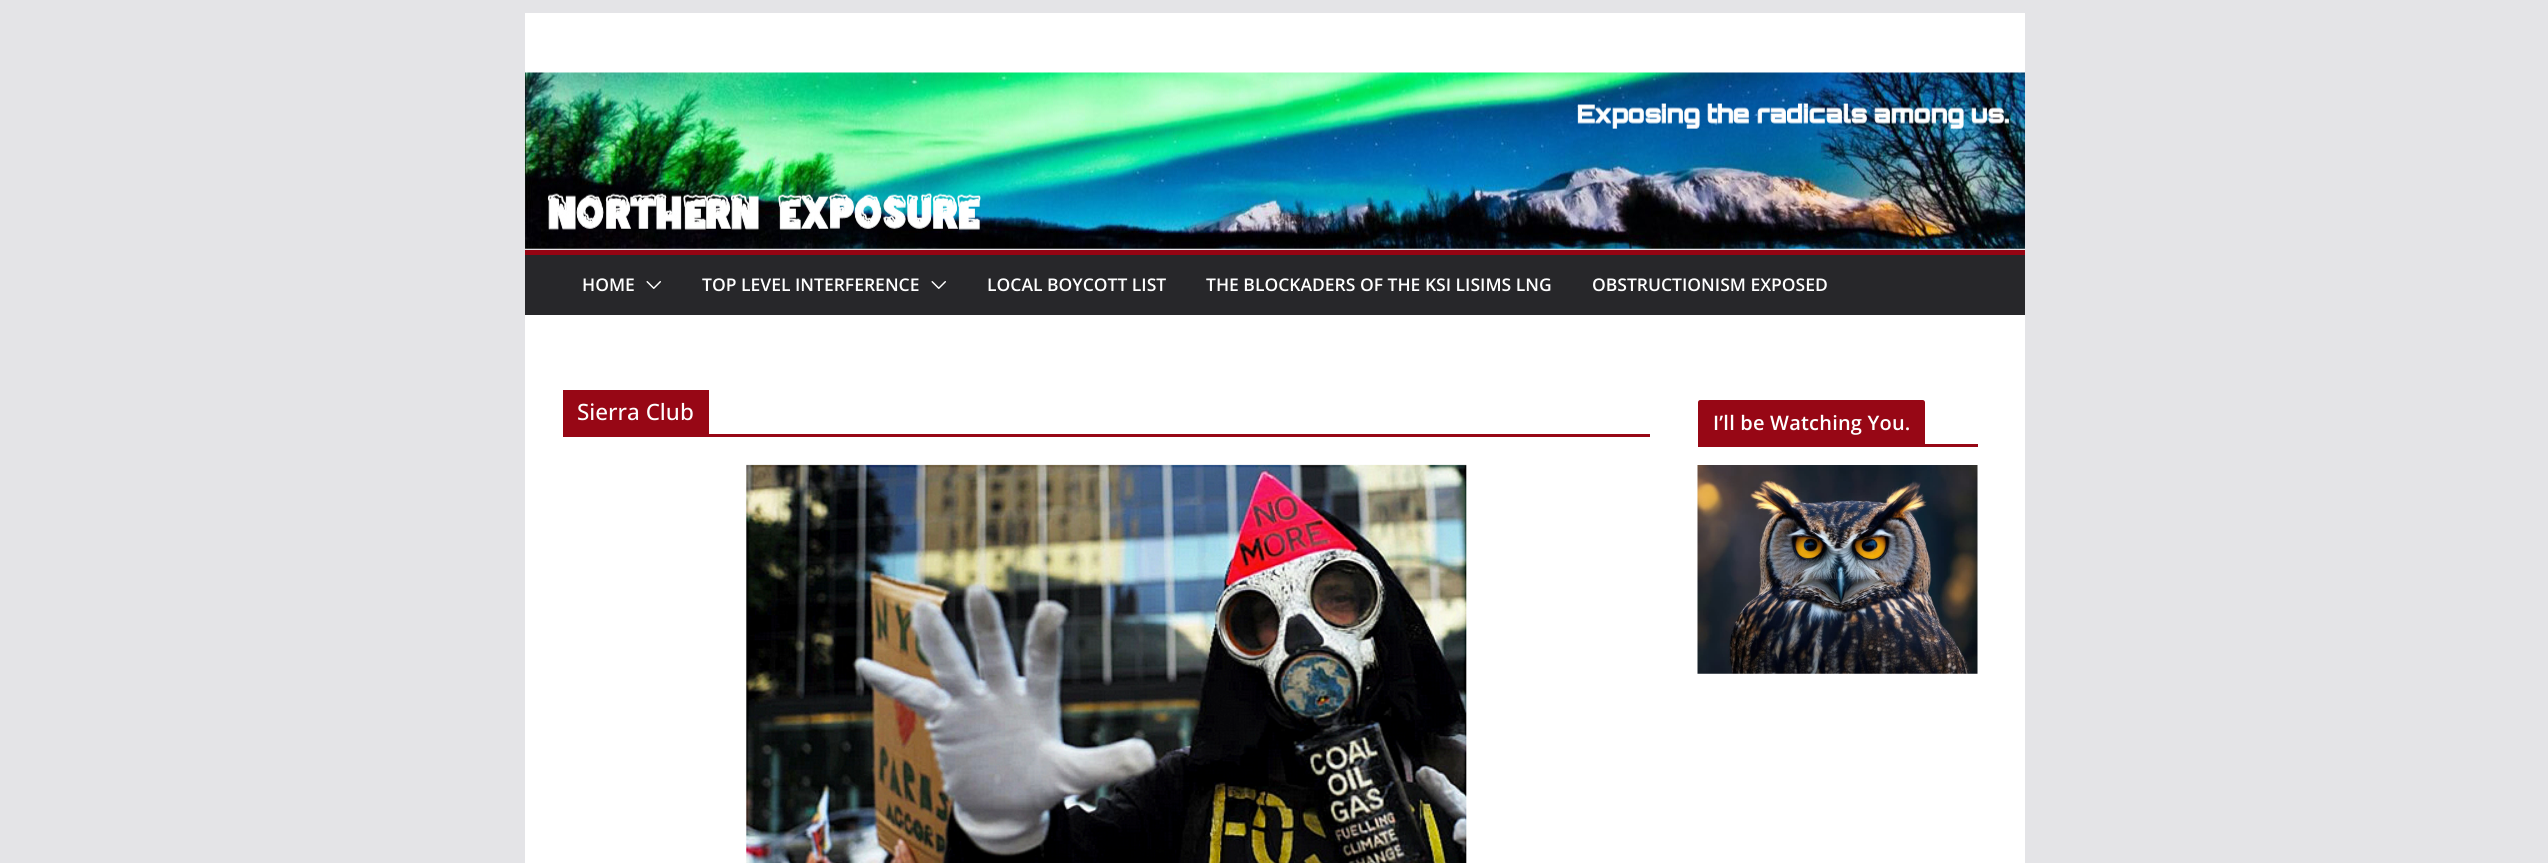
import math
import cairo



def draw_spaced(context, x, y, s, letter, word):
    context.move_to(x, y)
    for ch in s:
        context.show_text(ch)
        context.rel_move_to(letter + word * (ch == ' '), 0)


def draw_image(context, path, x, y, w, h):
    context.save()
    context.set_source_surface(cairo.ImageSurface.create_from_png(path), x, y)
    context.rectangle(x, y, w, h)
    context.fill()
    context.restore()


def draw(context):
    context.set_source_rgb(228 / 255, 228 / 255, 231 / 255)
    context.paint()
    context.set_source_rgb(1, 1, 1)
    context.rectangle(525, 13, 1500, 236)
    context.fill()
    draw_image(context, "images/1.png", 525, 72, 1500, 177)
    context.set_source_rgb(39 / 255, 39 / 255, 42 / 255)
    context.rectangle(525, 255, 1500, 60)
    context.fill()
    context.set_source_rgb(149 / 255, 4 / 255, 19 / 255)
    context.rectangle(525, 250, 1500, 5)
    context.fill()
    draw_image(context, "images/2.png", 646, 281, 15, 8)
    draw_image(context, "images/2.png", 931, 281, 15, 8)
    context.set_source_rgb(1, 1, 1)
    context.rectangle(525, 315, 1500, 548)
    context.fill()
    context.set_source_rgb(151 / 255, 7 / 255, 21 / 255)
    context.rectangle(563, 434, 1087, 3)
    context.fill()
    context.rectangle(563, 390, 146, 44)
    context.fill()
    draw_image(context, "images/3.png", 745, 464, 722, 399)
    context.rectangle(1698, 444, 280, 3)
    context.fill()
    context.new_path()
    context.move_to(1700.5, 400)
    context.line_to(1922.5, 400)
    context.curve_to(1924, 400, 1925, 401, 1925, 402.5)
    context.line_to(1925, 444)
    context.line_to(1698, 444)
    context.line_to(1698, 402.5)
    context.curve_to(1698, 401, 1699, 400, 1700.5, 400)
    context.close_path()
    context.fill()
    draw_image(context, "images/4.png", 1697, 465, 281, 209)
    context.select_font_face("Open Sans SemiBold")
    context.set_font_size(17.5)
    context.set_source_rgb(1, 1, 1)
    context.move_to(582, 291)
    context.show_text("HOME")
    context.move_to(702, 291)
    context.show_text("TOP LEVEL INTERFERENCE")
    context.move_to(987, 291)
    context.show_text("LOCAL BOYCOTT LIST")
    context.move_to(1206, 291)
    context.show_text("THE BLOCKADERS OF THE KSI LISIMS LNG")
    context.move_to(1592, 291)
    context.show_text("OBSTRUCTIONISM EXPOSED")
    context.select_font_face("Open Sans Medium")
    context.set_font_size(22.5)
    context.move_to(577, 420)
    context.show_text("Sierra Club")
    context.select_font_face("Open Sans SemiBold")
    context.set_font_size(20)
    draw_spaced(context, 1713, 430, "I’ll be Watching You.", 0.2, 0)


surface = cairo.ImageSurface(cairo.Format.RGB24, 2548, 863)
context = cairo.Context(surface)
options = cairo.FontOptions()
options.set_hint_metrics(cairo.HintMetrics.OFF)
options.set_hint_style(cairo.HintStyle.NONE)
context.set_font_options(options)
context.set_miter_limit(4)
draw(context)
surface.write_to_png("out.png")
